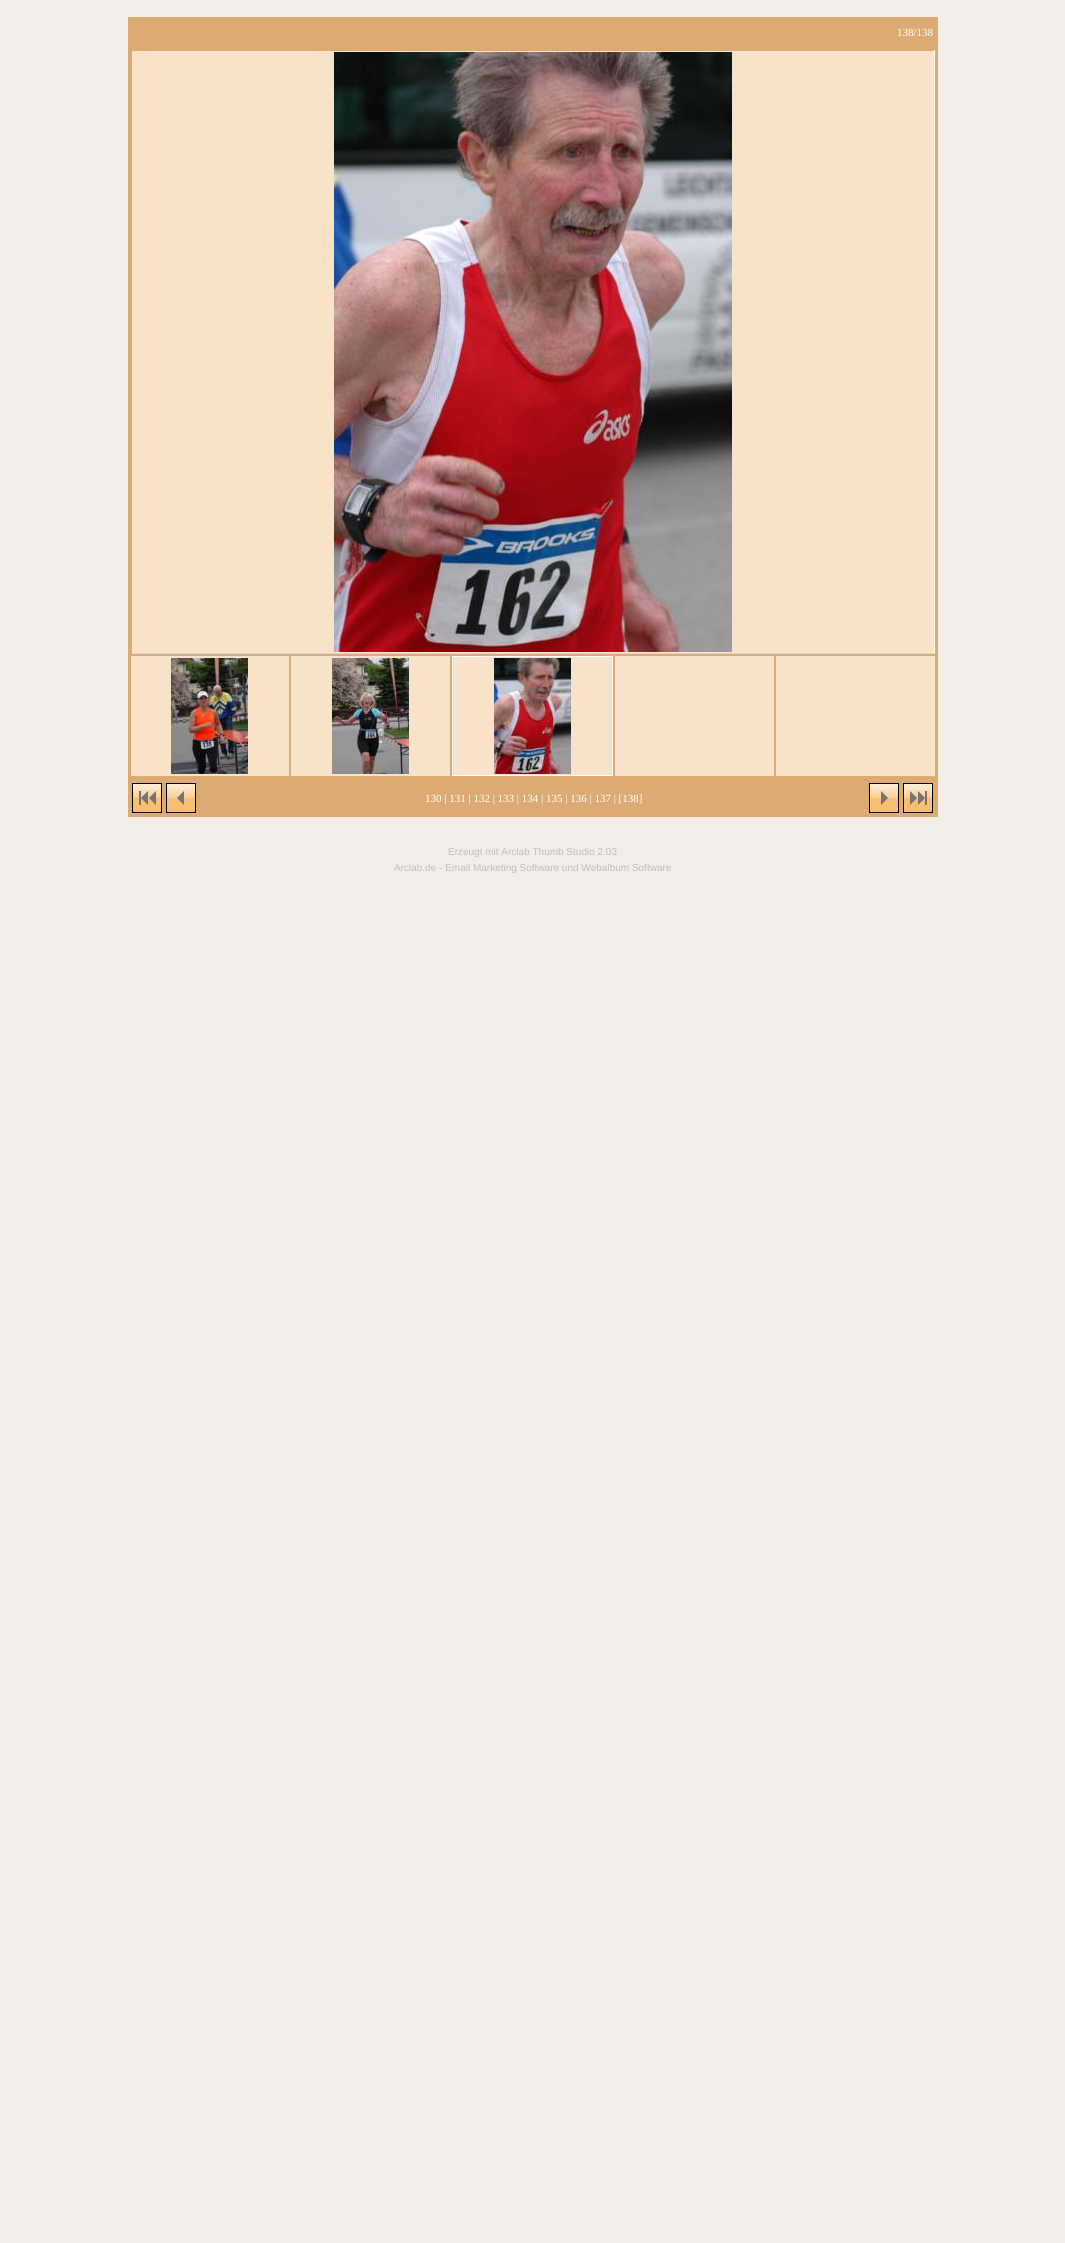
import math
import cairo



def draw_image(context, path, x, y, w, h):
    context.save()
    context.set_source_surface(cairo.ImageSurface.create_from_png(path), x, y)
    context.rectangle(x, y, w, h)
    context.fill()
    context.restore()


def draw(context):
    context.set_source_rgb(243 / 255, 237 / 255, 231 / 255)
    context.paint()
    context.set_source_rgb(219 / 255, 171 / 255, 115 / 255)
    context.rectangle(128, 17, 810, 800)
    context.fill()
    context.set_source_rgb(248 / 255, 226 / 255, 200 / 255)
    context.rectangle(132, 51, 802, 602)
    context.fill()
    context.set_source_rgb(1, 1, 1)
    context.rectangle(934, 50, 1, 604)
    context.fill()
    context.set_source_rgb(221 / 255, 217 / 255, 217 / 255)
    context.rectangle(131, 653, 804, 1)
    context.fill()
    context.set_source_rgb(219 / 255, 171 / 255, 115 / 255)
    context.rectangle(131, 653, 1, 1)
    context.fill()
    draw_image(context, "images/1.png", 334, 52, 398, 600)
    context.set_source_rgb(248 / 255, 226 / 255, 200 / 255)
    context.rectangle(131, 656, 158, 120)
    context.fill()
    draw_image(context, "images/2.png", 171, 658, 77, 116)
    context.rectangle(291, 656, 159, 120)
    context.fill()
    draw_image(context, "images/3.png", 332, 658, 77, 116)
    context.rectangle(452.5, 656.5, 160, 119)
    context.fill_preserve()
    context.set_source_rgb(1, 1, 1)
    context.set_line_width(1)
    context.stroke()
    draw_image(context, "images/4.png", 494, 658, 77, 116)
    context.set_source_rgb(248 / 255, 226 / 255, 200 / 255)
    context.rectangle(615, 656, 159, 120)
    context.fill()
    context.rectangle(776, 656, 159, 120)
    context.fill()
    draw_image(context, "images/5.png", 132, 783, 30, 30)
    draw_image(context, "images/6.png", 166, 783, 30, 30)
    draw_image(context, "images/7.png", 869, 783, 30, 30)
    draw_image(context, "images/8.png", 903, 783, 30, 30)
    context.select_font_face("Liberation Serif")
    context.set_font_size(11)
    context.set_source_rgb(1, 1, 1)
    context.move_to(897, 36)
    context.show_text("138/138")
    context.move_to(425, 802)
    context.show_text("130 | 131 | 132 | 133 | 134 | 135 | 136 | 137 | [138]")
    context.select_font_face("Liberation Sans")
    context.set_font_size(10)
    context.set_source_rgb(192 / 255, 192 / 255, 192 / 255)
    context.move_to(448, 855)
    context.show_text("Erzeugt mit Arclab Thumb Studio 2.03")
    context.move_to(394, 871)
    context.show_text("Arclab.de - Email Marketing Software und Webalbum Software")


surface = cairo.ImageSurface(cairo.Format.RGB24, 1065, 2243)
context = cairo.Context(surface)
options = cairo.FontOptions()
options.set_hint_metrics(cairo.HintMetrics.OFF)
options.set_hint_style(cairo.HintStyle.NONE)
context.set_font_options(options)
context.set_miter_limit(4)
draw(context)
surface.write_to_png("out.png")
